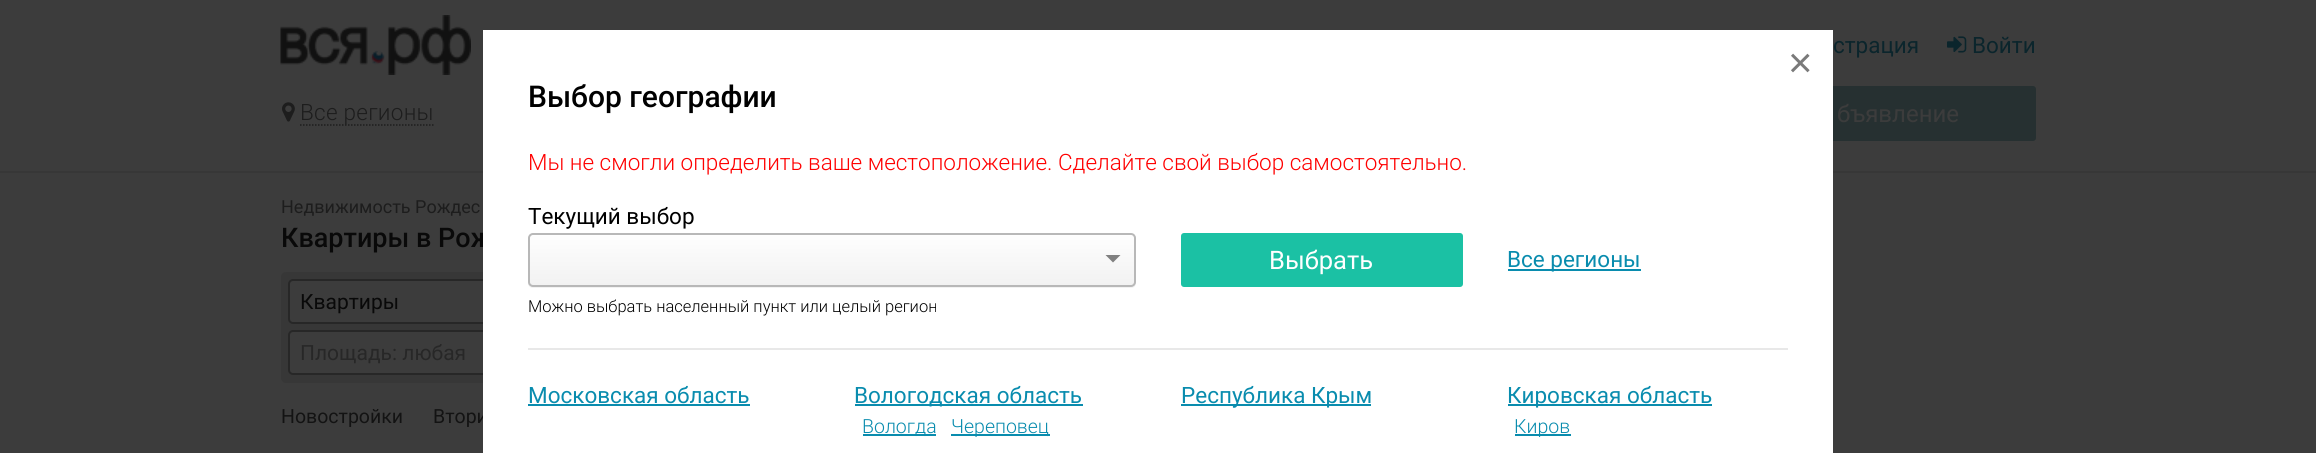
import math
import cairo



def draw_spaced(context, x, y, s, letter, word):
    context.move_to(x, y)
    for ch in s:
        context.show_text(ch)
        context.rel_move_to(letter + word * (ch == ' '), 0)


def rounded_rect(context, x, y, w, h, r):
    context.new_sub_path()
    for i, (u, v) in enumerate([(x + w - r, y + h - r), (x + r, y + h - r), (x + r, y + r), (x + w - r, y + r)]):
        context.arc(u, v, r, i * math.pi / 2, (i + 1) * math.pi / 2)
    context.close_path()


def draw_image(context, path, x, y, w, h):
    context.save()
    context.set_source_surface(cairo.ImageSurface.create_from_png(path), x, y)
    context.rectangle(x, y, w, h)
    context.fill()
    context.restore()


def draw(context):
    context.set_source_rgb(60 / 255, 60 / 255, 60 / 255)
    context.paint()
    context.set_source_rgb(55 / 255, 55 / 255, 55 / 255)
    context.rectangle(0, 171, 2316, 2)
    context.fill()
    draw_image(context, "images/1.png", 280, 15, 191, 60)
    draw_image(context, "images/2.png", 1947, 36, 20, 17)
    draw_image(context, "images/3.png", 282, 102, 13, 20)
    context.new_path()
    context.move_to(300, 125)
    context.line_to(433.5, 125)
    context.set_source_rgb(29 / 255, 29 / 255, 29 / 255)
    context.set_line_width(1.5)
    context.set_dash([1.5, 1.5])
    context.stroke()
    context.set_source_rgb(38 / 255, 48 / 255, 49 / 255)
    rounded_rect(context, 1631, 86, 405, 55, 3)
    context.fill()
    context.set_source_rgb(55 / 255, 55 / 255, 55 / 255)
    rounded_rect(context, 281, 272, 1092, 111, 5)
    context.fill()
    context.set_source_rgb(60 / 255, 60 / 255, 60 / 255)
    rounded_rect(context, 289, 280, 264, 43, 4)
    context.fill_preserve()
    context.set_source_rgb(39 / 255, 39 / 255, 39 / 255)
    context.set_line_width(2)
    context.set_dash([])
    context.stroke()
    context.set_source_rgb(60 / 255, 60 / 255, 60 / 255)
    rounded_rect(context, 289, 331, 264, 43, 4)
    context.fill_preserve()
    context.set_source_rgb(39 / 255, 39 / 255, 39 / 255)
    context.stroke()
    context.select_font_face("Roboto")
    context.set_font_size(22.5)
    context.set_source_rgb(11 / 255, 37 / 255, 44 / 255)
    context.move_to(1833, 53)
    context.show_text("страция")
    context.move_to(1972, 53)
    context.show_text("Войти")
    context.select_font_face("Roboto Light")
    context.set_source_rgb(29 / 255, 29 / 255, 29 / 255)
    draw_spaced(context, 300, 120, "Все регионы", 0.25, 0)
    context.select_font_face("Roboto")
    context.set_font_size(24)
    context.set_source_rgb(60 / 255, 60 / 255, 60 / 255)
    context.move_to(1837, 122)
    context.show_text("бъявление")
    context.set_font_size(18)
    context.set_source_rgb(29 / 255, 29 / 255, 29 / 255)
    context.move_to(281, 213)
    context.show_text("Недвижимость Рождес")
    context.select_font_face("Roboto Medium")
    context.set_font_size(27)
    context.set_source_rgb(9 / 255, 9 / 255, 9 / 255)
    context.move_to(281, 247)
    context.show_text("Квартиры в Рож")
    context.select_font_face("Roboto")
    context.set_font_size(21)
    context.move_to(300, 309)
    context.show_text("Квартиры")
    context.set_source_rgb(39 / 255, 39 / 255, 39 / 255)
    context.move_to(300, 360)
    context.show_text("Площадь: любая")
    context.set_font_size(19.5)
    context.set_source_rgb(19 / 255, 19 / 255, 19 / 255)
    context.move_to(281, 423)
    context.show_text("Новостройки")
    context.move_to(433, 423)
    context.show_text("Втори")
    context.set_source_rgb(1, 1, 1)
    context.rectangle(483, 30, 1350, 423)
    context.fill()
    context.select_font_face("Liberation Sans")
    context.set_font_size(42)
    context.set_source_rgb(122 / 255, 122 / 255, 122 / 255)
    context.move_to(1788, 77)
    context.show_text("×")
    context.select_font_face("Roboto Medium")
    context.set_font_size(30)
    context.set_source_rgb(0, 0, 0)
    context.move_to(528, 107)
    context.show_text("Выбор географии")
    context.select_font_face("Roboto Light")
    context.set_font_size(22.5)
    context.set_source_rgb(1, 0, 0)
    context.move_to(528, 170)
    context.show_text("Мы не смогли определить ваше местоположение. Сделайте свой выбор самостоятельно.")
    context.set_source_rgb(232 / 255, 232 / 255, 232 / 255)
    context.rectangle(528, 348, 1260, 2)
    context.fill()
    context.select_font_face("Roboto")
    context.set_source_rgb(0, 0, 0)
    context.move_to(528, 224)
    context.show_text("Текущий выбор")
    context.set_source_rgb(242 / 255, 242 / 255, 242 / 255)
    context.new_path()
    context.move_to(528, 282)
    context.line_to(528, 283)
    context.curve_to(528, 286, 530, 288, 533, 288)
    context.line_to(1131, 288)
    context.curve_to(1134, 288, 1136, 286, 1136, 283)
    context.line_to(1136, 239)
    context.line_to(1135, 237)
    context.line_to(1136, 282)
    context.curve_to(1136, 284, 1133, 286, 1131, 286)
    context.line_to(532, 286)
    context.curve_to(530, 286, 528, 284, 528, 282)
    context.close_path()
    context.fill()
    context.save()
    rounded_rect(context, 528, 233, 608, 54, 5)
    context.clip()
    gradient = cairo.LinearGradient(832, 234, 832, 285)
    gradient.add_color_stop_rgba(0, 254 / 255, 254 / 255, 254 / 255, 1)
    gradient.add_color_stop_rgba(1, 242 / 255, 242 / 255, 242 / 255, 1)
    context.set_source(gradient)
    context.rectangle(528, 234, 608, 51)
    context.fill()
    context.restore()
    rounded_rect(context, 529, 234, 606, 52, 4)
    context.set_source_rgb(184 / 255, 184 / 255, 184 / 255)
    context.stroke()
    context.set_source_rgb(128 / 255, 128 / 255, 128 / 255)
    context.new_path()
    context.move_to(1105.5, 255)
    context.line_to(1120.5, 255)
    context.line_to(1113, 262.5)
    context.close_path()
    context.fill()
    context.set_source_rgb(27 / 255, 193 / 255, 164 / 255)
    rounded_rect(context, 1181, 233, 282, 54, 3)
    context.fill()
    context.set_font_size(25.5)
    context.set_source_rgb(1, 1, 1)
    context.move_to(1269, 269)
    context.show_text("Выбрать")
    context.select_font_face("Roboto Light")
    context.set_font_size(16.5)
    context.set_source_rgb(0, 0, 0)
    context.move_to(528, 312)
    context.show_text("Можно выбрать населенный пункт или целый регион")
    context.set_source_rgb(9 / 255, 140 / 255, 174 / 255)
    context.rectangle(1508, 269, 133, 2)
    context.fill()
    context.select_font_face("Roboto")
    context.set_font_size(22.5)
    context.move_to(1507, 267)
    context.show_text("Все регионы")
    context.move_to(528, 403)
    context.show_text("Московская область")
    context.rectangle(528, 404, 222, 2)
    context.fill()
    context.rectangle(855, 404, 228, 2)
    context.fill()
    context.move_to(854, 403)
    context.show_text("Вологодская область")
    context.rectangle(863, 434, 73, 2)
    context.fill()
    context.select_font_face("Roboto Light")
    context.set_font_size(19.5)
    context.move_to(862, 433)
    context.show_text("Вологда")
    context.rectangle(951, 434, 99, 2)
    context.fill()
    context.move_to(951, 433)
    context.show_text("Череповец")
    context.rectangle(1181, 404, 190, 2)
    context.fill()
    context.select_font_face("Roboto")
    context.set_font_size(22.5)
    context.move_to(1181, 403)
    context.show_text("Республика Крым")
    context.rectangle(1508, 404, 204, 2)
    context.fill()
    context.move_to(1507, 403)
    context.show_text("Кировская область")
    context.rectangle(1515, 434, 56, 2)
    context.fill()
    context.select_font_face("Roboto Light")
    context.set_font_size(19.5)
    context.move_to(1514, 433)
    context.show_text("Киров")


surface = cairo.ImageSurface(cairo.Format.RGB24, 2316, 453)
context = cairo.Context(surface)
options = cairo.FontOptions()
options.set_hint_metrics(cairo.HintMetrics.OFF)
options.set_hint_style(cairo.HintStyle.NONE)
context.set_font_options(options)
context.set_miter_limit(4)
draw(context)
surface.write_to_png("out.png")
